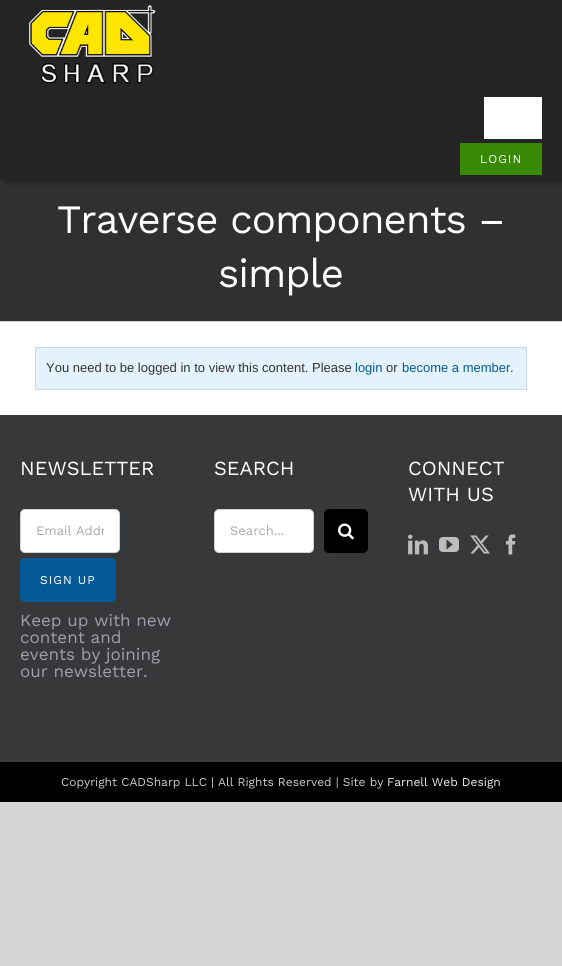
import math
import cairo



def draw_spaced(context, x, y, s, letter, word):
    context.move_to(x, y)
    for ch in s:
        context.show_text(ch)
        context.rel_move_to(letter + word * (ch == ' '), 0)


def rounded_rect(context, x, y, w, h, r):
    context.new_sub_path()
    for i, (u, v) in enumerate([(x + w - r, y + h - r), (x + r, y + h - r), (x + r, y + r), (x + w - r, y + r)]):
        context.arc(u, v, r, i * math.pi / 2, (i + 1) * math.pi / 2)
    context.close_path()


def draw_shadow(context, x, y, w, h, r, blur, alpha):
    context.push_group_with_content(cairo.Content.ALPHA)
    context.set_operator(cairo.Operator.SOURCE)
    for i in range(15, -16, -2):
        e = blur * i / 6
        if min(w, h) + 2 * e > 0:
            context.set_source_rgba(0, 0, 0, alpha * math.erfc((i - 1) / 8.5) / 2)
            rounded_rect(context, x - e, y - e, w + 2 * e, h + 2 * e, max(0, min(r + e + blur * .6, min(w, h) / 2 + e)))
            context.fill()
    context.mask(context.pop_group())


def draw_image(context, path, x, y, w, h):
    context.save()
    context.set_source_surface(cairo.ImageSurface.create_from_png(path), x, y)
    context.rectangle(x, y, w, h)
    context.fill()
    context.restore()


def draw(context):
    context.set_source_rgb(215 / 255, 214 / 255, 214 / 255)
    context.paint()
    context.set_source_rgb(1, 1, 1)
    context.rectangle(0, 322, 562, 93)
    context.fill()
    context.set_source_rgb(48 / 255, 48 / 255, 48 / 255)
    context.rectangle(0, 180, 562, 141)
    context.fill()
    context.set_source_rgb(0, 0, 0)
    draw_shadow(context, 4, 3, 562, 180, 0, 2.5, 0.29)
    context.set_source_rgb(36 / 255, 36 / 255, 36 / 255)
    context.rectangle(0, 0, 562, 180)
    context.fill()
    draw_image(context, "images/1.png", 29, 5, 127, 79)
    context.set_source_rgb(1, 1, 1)
    context.rectangle(484, 97, 58, 42)
    context.fill()
    context.set_source_rgb(56 / 255, 137 / 255, 5 / 255)
    context.rectangle(460, 143, 82, 32)
    context.fill()
    context.set_source_rgb(210 / 255, 211 / 255, 212 / 255)
    context.rectangle(0, 321, 562, 1)
    context.fill()
    context.set_source_rgb(228 / 255, 242 / 255, 253 / 255)
    context.rectangle(35.5, 347.5, 491, 42)
    context.fill_preserve()
    context.set_source_rgb(198 / 255, 217 / 255, 233 / 255)
    context.set_line_width(1)
    context.stroke()
    context.set_source_rgb(54 / 255, 56 / 255, 57 / 255)
    context.rectangle(0, 415, 562, 347)
    context.fill()
    context.set_source_rgb(1, 1, 1)
    rounded_rect(context, 20.5, 509.5, 99, 43, 4.5)
    context.fill_preserve()
    context.set_source_rgb(210 / 255, 210 / 255, 210 / 255)
    context.stroke()
    context.set_source_rgb(4 / 255, 90 / 255, 151 / 255)
    rounded_rect(context, 20, 558, 96, 44, 5)
    context.fill()
    context.set_source_rgb(1, 1, 1)
    rounded_rect(context, 214.5, 509.5, 99, 43, 4.5)
    context.fill_preserve()
    context.set_source_rgb(210 / 255, 210 / 255, 210 / 255)
    context.stroke()
    context.set_source_rgb(0, 0, 0)
    rounded_rect(context, 324, 509, 44, 44, 5)
    context.fill()
    draw_image(context, "images/2.png", 338, 523, 16, 17)
    draw_image(context, "images/3.png", 408, 534, 20, 21)
    draw_image(context, "images/4.png", 439, 537, 20, 15)
    draw_image(context, "images/5.png", 470, 535, 20, 19)
    draw_image(context, "images/6.png", 506, 534, 10, 21)
    context.rectangle(0, 762, 562, 40)
    context.fill()
    context.select_font_face("Work Sans")
    context.set_font_size(12)
    context.set_source_rgb(1, 1, 1)
    draw_spaced(context, 480, 163, "LOGIN", 1, 0)
    context.set_font_size(40.25)
    draw_spaced(context, 57, 233, "Traverse components –", -1, 0)
    draw_spaced(context, 218, 287, "simple", -1, 0)
    context.select_font_face("Liberation Sans")
    context.set_font_size(13)
    context.set_source_rgb(51 / 255, 51 / 255, 51 / 255)
    context.move_to(46, 372)
    context.show_text("You need to be logged in to view this content. Please")
    context.set_source_rgb(4 / 255, 90 / 255, 151 / 255)
    context.move_to(355, 372)
    context.show_text("login")
    context.set_source_rgb(51 / 255, 51 / 255, 51 / 255)
    context.move_to(386, 372)
    context.show_text("or")
    context.set_source_rgb(4 / 255, 90 / 255, 151 / 255)
    context.move_to(402, 372)
    context.show_text("become a member")
    context.set_source_rgb(51 / 255, 51 / 255, 51 / 255)
    context.move_to(510, 372)
    context.show_text(".")
    context.select_font_face("Work Sans")
    context.set_font_size(20)
    context.set_source_rgb(1, 1, 1)
    context.move_to(20, 475)
    context.show_text("NEWSLETTER")
    context.save()
    context.rectangle(36, 523, 68, 15)
    context.clip()
    context.set_font_size(13)
    context.set_source_rgb(170 / 255, 169 / 255, 169 / 255)
    context.move_to(36, 535)
    context.show_text("Email Addr")
    context.restore()
    context.set_font_size(12)
    draw_spaced(context, 40, 584, "SIGN UP", 1, 0)
    context.set_font_size(17)
    context.set_source_rgb(159 / 255, 160 / 255, 171 / 255)
    context.move_to(20, 626)
    context.show_text("Keep up with new")
    context.move_to(20, 643)
    context.show_text("content and")
    context.move_to(20, 660)
    context.show_text("events by joining")
    context.move_to(20, 677)
    context.show_text("our newsletter.")
    context.set_font_size(20)
    context.set_source_rgb(1, 1, 1)
    context.move_to(214, 475)
    context.show_text("SEARCH")
    context.set_font_size(13)
    context.set_source_rgb(170 / 255, 169 / 255, 169 / 255)
    context.move_to(230, 535)
    context.show_text("Search...")
    context.set_font_size(20)
    context.set_source_rgb(1, 1, 1)
    context.move_to(408, 475)
    context.show_text("CONNECT")
    context.move_to(408, 501)
    context.show_text("WITH US")
    context.set_font_size(12)
    context.set_source_rgb(204 / 255, 204 / 255, 204 / 255)
    context.move_to(61, 786)
    context.show_text("Copyright CADSharp LLC | All Rights Reserved | Site by")
    context.set_source_rgb(238 / 255, 238 / 255, 238 / 255)
    context.move_to(387, 786)
    context.show_text("Farnell Web Design")


surface = cairo.ImageSurface(cairo.Format.RGB24, 562, 966)
context = cairo.Context(surface)
options = cairo.FontOptions()
options.set_hint_metrics(cairo.HintMetrics.OFF)
options.set_hint_style(cairo.HintStyle.NONE)
context.set_font_options(options)
context.set_miter_limit(4)
draw(context)
surface.write_to_png("out.png")
